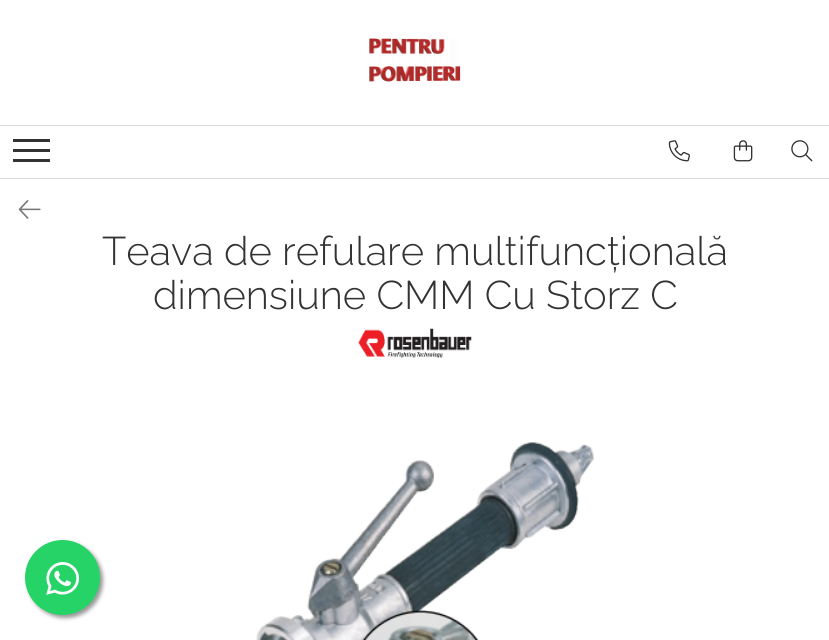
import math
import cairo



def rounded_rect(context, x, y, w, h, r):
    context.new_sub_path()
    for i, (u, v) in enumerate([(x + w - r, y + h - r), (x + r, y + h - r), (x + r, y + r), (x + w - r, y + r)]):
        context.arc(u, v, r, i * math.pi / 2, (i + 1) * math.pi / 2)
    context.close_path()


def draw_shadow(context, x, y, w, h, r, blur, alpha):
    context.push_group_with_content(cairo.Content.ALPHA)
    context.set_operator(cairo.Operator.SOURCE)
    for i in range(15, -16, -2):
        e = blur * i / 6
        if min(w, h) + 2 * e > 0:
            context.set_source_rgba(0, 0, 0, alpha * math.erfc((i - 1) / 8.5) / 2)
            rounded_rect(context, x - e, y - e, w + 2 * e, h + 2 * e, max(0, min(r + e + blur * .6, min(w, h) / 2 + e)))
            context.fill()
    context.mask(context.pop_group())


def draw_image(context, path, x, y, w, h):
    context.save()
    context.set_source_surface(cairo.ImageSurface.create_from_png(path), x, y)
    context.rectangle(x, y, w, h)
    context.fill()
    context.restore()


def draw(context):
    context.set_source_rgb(1, 1, 1)
    context.paint()
    draw_image(context, "images/1.png", 369, 38, 92, 44)
    context.set_source_rgb(217 / 255, 217 / 255, 217 / 255)
    context.rectangle(0, 125, 829, 1)
    context.fill()
    context.rectangle(0, 178, 829, 1)
    context.fill()
    context.set_source_rgb(50 / 255, 50 / 255, 50 / 255)
    context.rectangle(13, 149, 37, 3)
    context.fill()
    context.rectangle(13, 139, 37, 3)
    context.fill()
    context.rectangle(13, 159, 37, 3)
    context.fill()
    draw_image(context, "images/2.png", 668, 140, 22, 22)
    draw_image(context, "images/3.png", 733, 140, 20, 22)
    draw_image(context, "images/4.png", 791, 140, 22, 22)
    draw_image(context, "images/5.png", 18, 200, 23, 19)
    draw_image(context, "images/6.png", 358, 328, 114, 30)
    draw_image(context, "images/7.png", 256, 442, 338, 198)
    context.set_source_rgb(153 / 255, 153 / 255, 153 / 255)
    draw_shadow(context, 28, 543, 75, 75, 37.5, 2, 1)
    context.set_source_rgb(37 / 255, 211 / 255, 102 / 255)
    context.arc(62.5, 577.5, 37.5, 0, 2 * math.pi)
    context.fill()
    draw_image(context, "images/8.png", 46, 562, 34, 33)
    context.select_font_face("Raleway Light")
    context.set_font_size(40)
    context.set_source_rgb(51 / 255, 51 / 255, 51 / 255)
    context.move_to(102, 265)
    context.show_text("Teava de refulare multifuncțională")
    context.move_to(153, 309)
    context.show_text("dimensiune CMM Cu Storz C")


surface = cairo.ImageSurface(cairo.Format.RGB24, 829, 640)
context = cairo.Context(surface)
options = cairo.FontOptions()
options.set_hint_metrics(cairo.HintMetrics.OFF)
options.set_hint_style(cairo.HintStyle.NONE)
context.set_font_options(options)
context.set_miter_limit(4)
draw(context)
surface.write_to_png("out.png")
